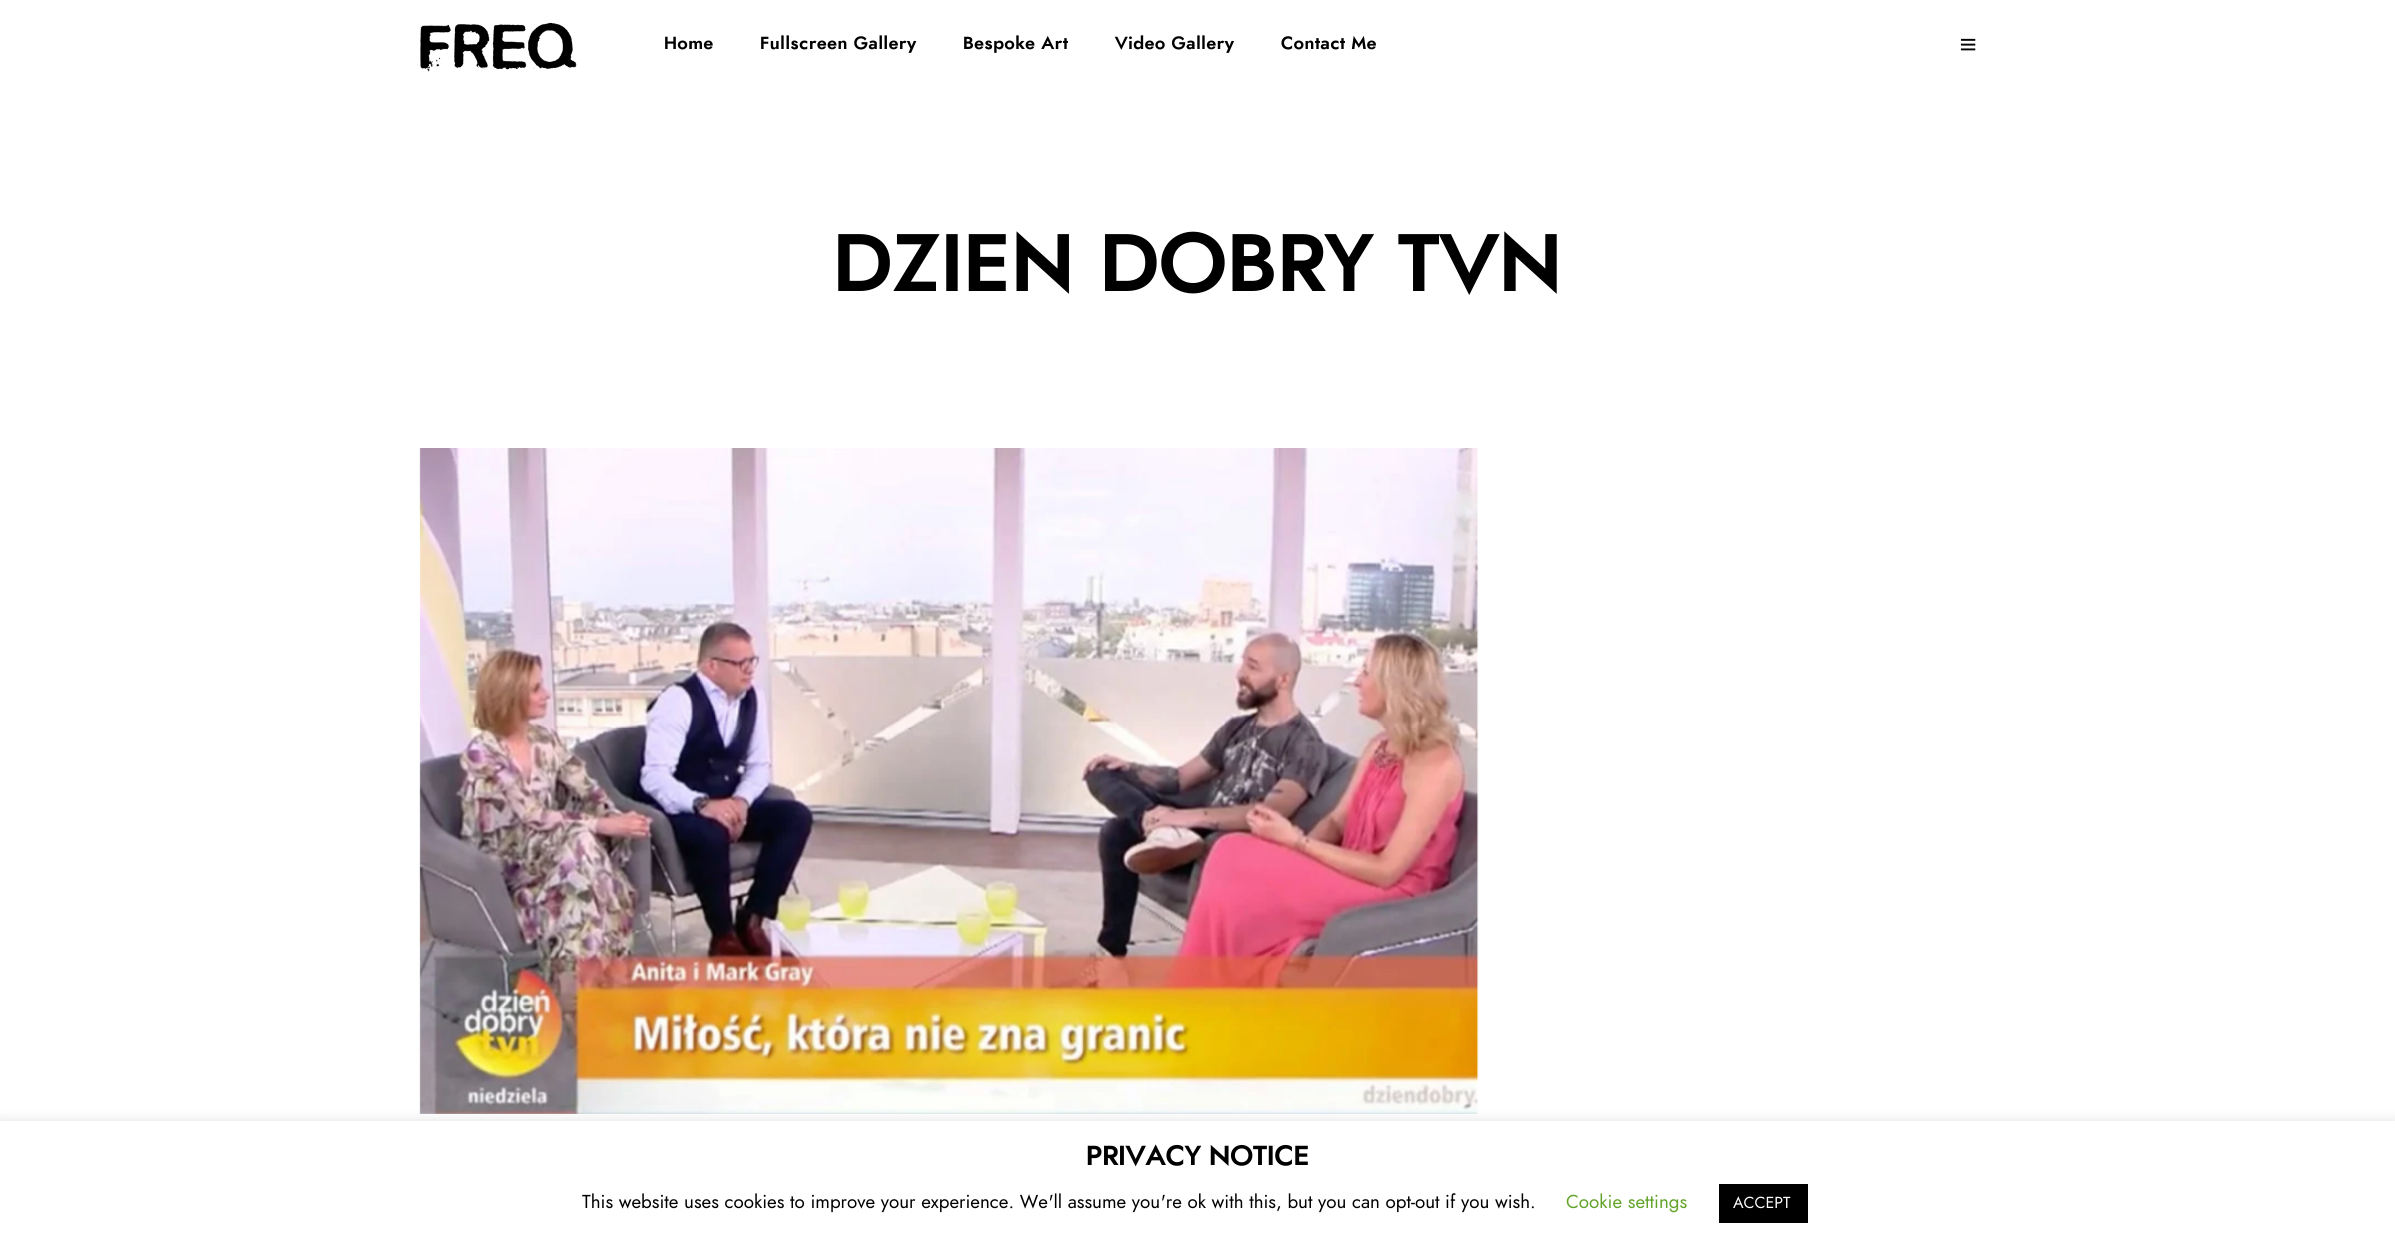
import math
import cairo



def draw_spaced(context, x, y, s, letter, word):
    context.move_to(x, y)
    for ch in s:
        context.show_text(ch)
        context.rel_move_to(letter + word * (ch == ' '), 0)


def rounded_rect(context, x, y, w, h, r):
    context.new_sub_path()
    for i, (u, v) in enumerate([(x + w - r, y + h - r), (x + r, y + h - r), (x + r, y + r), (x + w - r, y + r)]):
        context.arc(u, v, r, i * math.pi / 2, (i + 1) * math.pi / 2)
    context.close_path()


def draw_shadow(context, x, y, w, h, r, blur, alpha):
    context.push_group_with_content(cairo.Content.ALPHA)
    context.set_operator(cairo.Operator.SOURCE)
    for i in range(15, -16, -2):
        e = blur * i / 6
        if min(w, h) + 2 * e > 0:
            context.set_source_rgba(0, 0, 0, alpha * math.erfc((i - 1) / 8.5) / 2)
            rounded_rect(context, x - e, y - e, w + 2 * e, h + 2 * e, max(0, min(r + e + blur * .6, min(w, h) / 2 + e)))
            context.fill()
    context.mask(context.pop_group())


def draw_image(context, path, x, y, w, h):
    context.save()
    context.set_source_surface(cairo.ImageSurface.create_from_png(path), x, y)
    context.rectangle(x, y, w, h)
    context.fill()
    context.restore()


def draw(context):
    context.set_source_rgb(1, 1, 1)
    context.paint()
    draw_image(context, "images/1.png", 420, 22, 157, 50)
    draw_image(context, "images/2.png", 1960, 38, 16, 13)
    draw_image(context, "images/3.png", 419, 448, 1060, 666)
    context.set_source_rgb(172 / 255, 171 / 255, 171 / 255)
    draw_shadow(context, 0, 1120, 2395, 123, 0, 6, 0.3)
    context.set_source_rgb(1, 1, 1)
    context.rectangle(0, 1121, 2395, 122)
    context.fill()
    context.set_source_rgb(0, 0, 0)
    context.rectangle(1719, 1184, 89, 39)
    context.fill()
    context.select_font_face("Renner", cairo.FontSlant.NORMAL, cairo.FontWeight.BOLD)
    context.set_font_size(17.5)
    draw_spaced(context, 664, 49, "Home", 0.6, 0)
    draw_spaced(context, 760, 49, "Fullscreen Gallery", 0.6, 0)
    draw_spaced(context, 963, 49, "Bespoke Art", 0.6, 0)
    draw_spaced(context, 1115, 49, "Video Gallery", 0.6, 0)
    draw_spaced(context, 1281, 49, "Contact Me", 0.6, 0)
    context.set_font_size(81.25)
    draw_spaced(context, 833, 291, "DZIEN DOBRY TVN", 0.6, 0)
    context.set_font_size(27.5)
    context.move_to(1086, 1165)
    context.show_text("PRIVACY NOTICE")
    context.select_font_face("Renner")
    context.set_font_size(18.75)
    context.move_to(582, 1208)
    context.show_text("This website uses cookies to improve your experience. We'll assume you're ok with this, but you can opt-out if you wish.")
    context.set_source_rgb(98 / 255, 163 / 255, 41 / 255)
    context.move_to(1566, 1208)
    context.show_text("Cookie settings")
    context.set_font_size(16)
    context.set_source_rgb(1, 1, 1)
    context.move_to(1733, 1208)
    context.show_text("ACCEPT")


surface = cairo.ImageSurface(cairo.Format.RGB24, 2395, 1243)
context = cairo.Context(surface)
options = cairo.FontOptions()
options.set_hint_metrics(cairo.HintMetrics.OFF)
options.set_hint_style(cairo.HintStyle.NONE)
context.set_font_options(options)
context.set_miter_limit(4)
draw(context)
surface.write_to_png("out.png")
